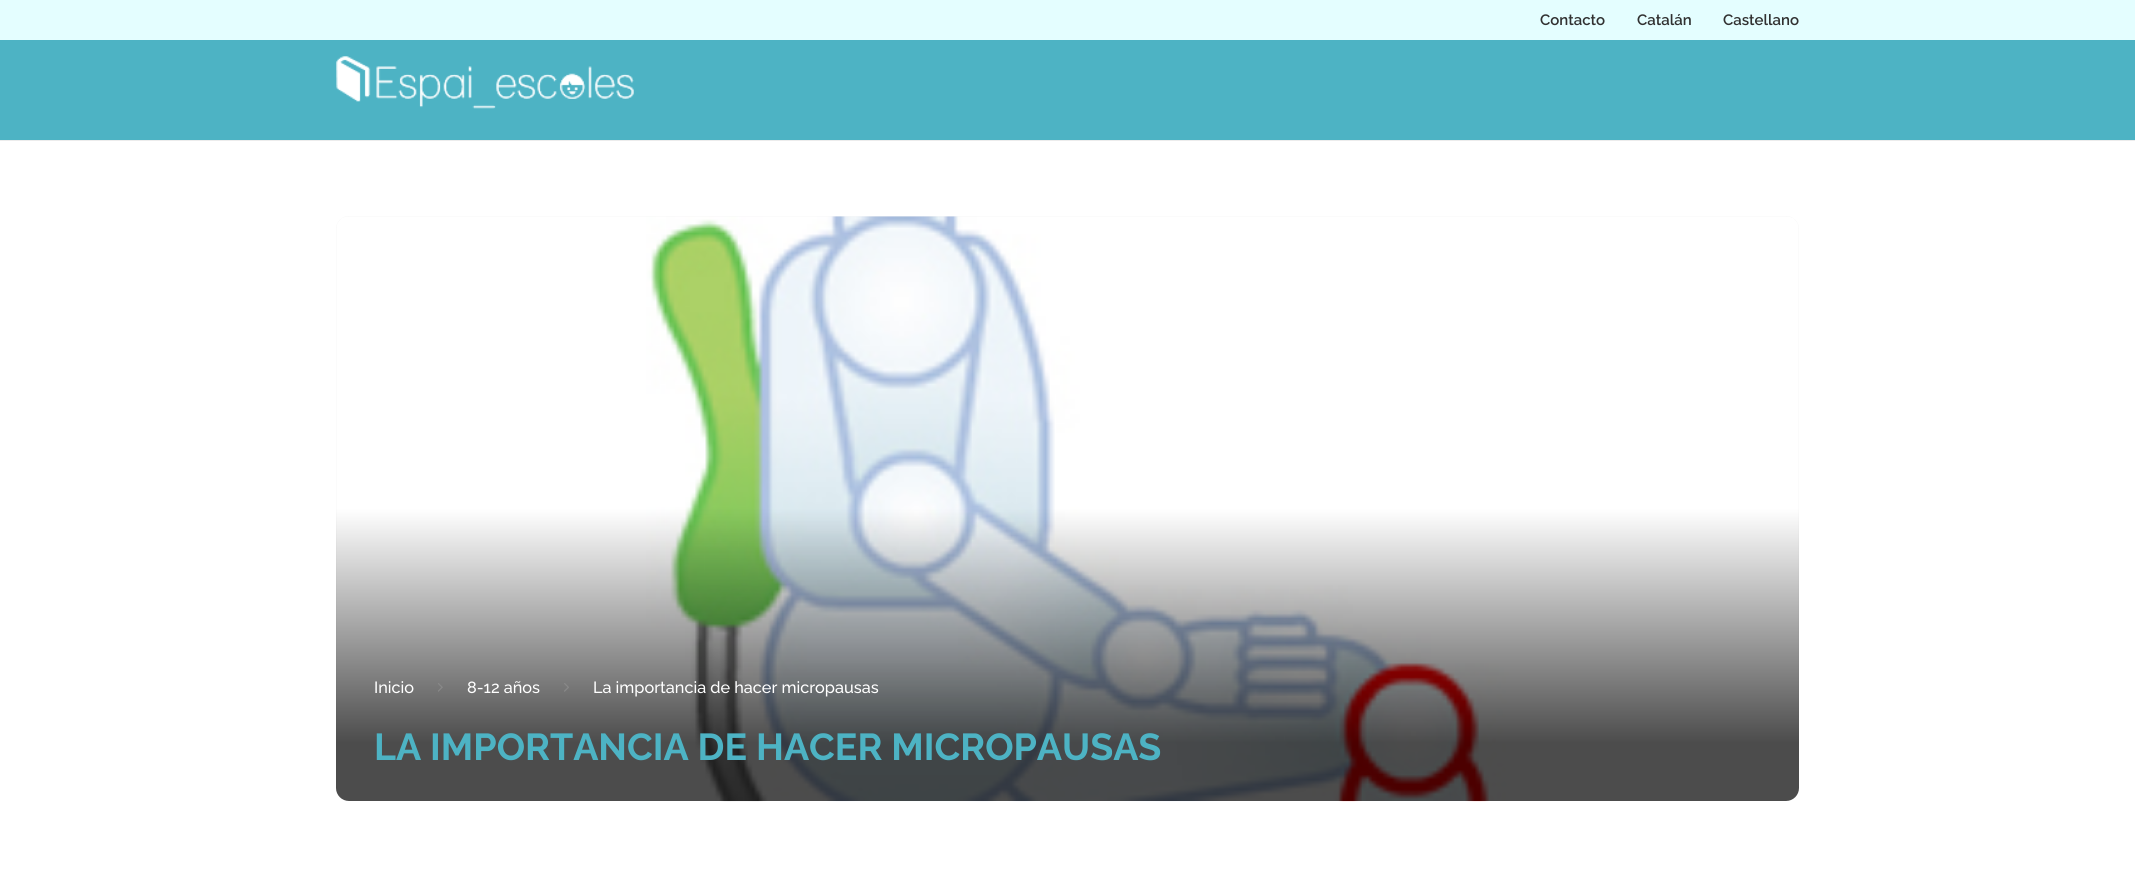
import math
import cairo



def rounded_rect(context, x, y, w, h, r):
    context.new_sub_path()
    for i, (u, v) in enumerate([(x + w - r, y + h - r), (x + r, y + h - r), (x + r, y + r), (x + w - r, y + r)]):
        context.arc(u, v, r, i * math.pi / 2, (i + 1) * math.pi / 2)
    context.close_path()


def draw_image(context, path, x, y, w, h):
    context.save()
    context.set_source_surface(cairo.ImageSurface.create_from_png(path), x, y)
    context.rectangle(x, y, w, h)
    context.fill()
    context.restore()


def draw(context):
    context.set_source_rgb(1, 1, 1)
    context.paint()
    context.set_source_rgb(228 / 255, 254 / 255, 1)
    context.rectangle(0, 0, 2135, 40)
    context.fill()
    context.set_source_rgb(77 / 255, 179 / 255, 196 / 255)
    context.rectangle(0, 40, 2135, 100)
    context.fill()
    context.set_source_rgb(236 / 255, 236 / 255, 236 / 255)
    context.rectangle(0, 140, 2135, 1)
    context.fill()
    draw_image(context, "images/1.png", 336, 56, 298, 53)
    context.set_source_rgb(245 / 255, 245 / 255, 245 / 255)
    rounded_rect(context, 336, 216, 1463, 585, 13)
    context.fill()
    draw_image(context, "images/2.png", 336, 216, 1463, 586)
    gradient = cairo.LinearGradient(1068, 216, 1068, 801)
    gradient.add_color_stop_rgba(0.5, 0, 0, 0, 0)
    gradient.add_color_stop_rgba(0.9, 0, 0, 0, 0.7)
    context.set_source(gradient)
    rounded_rect(context, 336, 216, 1463, 585, 13)
    context.fill()
    draw_image(context, "images/3.png", 438, 683, 5, 9)
    draw_image(context, "images/4.png", 564, 683, 5, 9)
    context.select_font_face("Raleway SemiBold")
    context.set_font_size(15)
    context.set_source_rgb(49 / 255, 49 / 255, 49 / 255)
    context.move_to(1540, 25)
    context.show_text("Contacto")
    context.move_to(1637, 25)
    context.show_text("Catalán")
    context.move_to(1723, 25)
    context.show_text("Castellano")
    context.select_font_face("Raleway Medium")
    context.set_font_size(16.25)
    context.set_source_rgb(1, 1, 1)
    context.move_to(374, 693)
    context.show_text("Inicio")
    context.move_to(467, 693)
    context.show_text("8-12 años")
    context.move_to(593, 693)
    context.show_text("La importancia de hacer micropausas")
    context.select_font_face("Raleway", cairo.FontSlant.NORMAL, cairo.FontWeight.BOLD)
    context.set_font_size(37.5)
    context.set_source_rgb(77 / 255, 179 / 255, 196 / 255)
    context.move_to(374, 760)
    context.show_text("LA IMPORTANCIA DE HACER MICROPAUSAS")


surface = cairo.ImageSurface(cairo.Format.RGB24, 2135, 875)
context = cairo.Context(surface)
options = cairo.FontOptions()
options.set_hint_metrics(cairo.HintMetrics.OFF)
options.set_hint_style(cairo.HintStyle.NONE)
context.set_font_options(options)
context.set_miter_limit(4)
draw(context)
surface.write_to_png("out.png")
